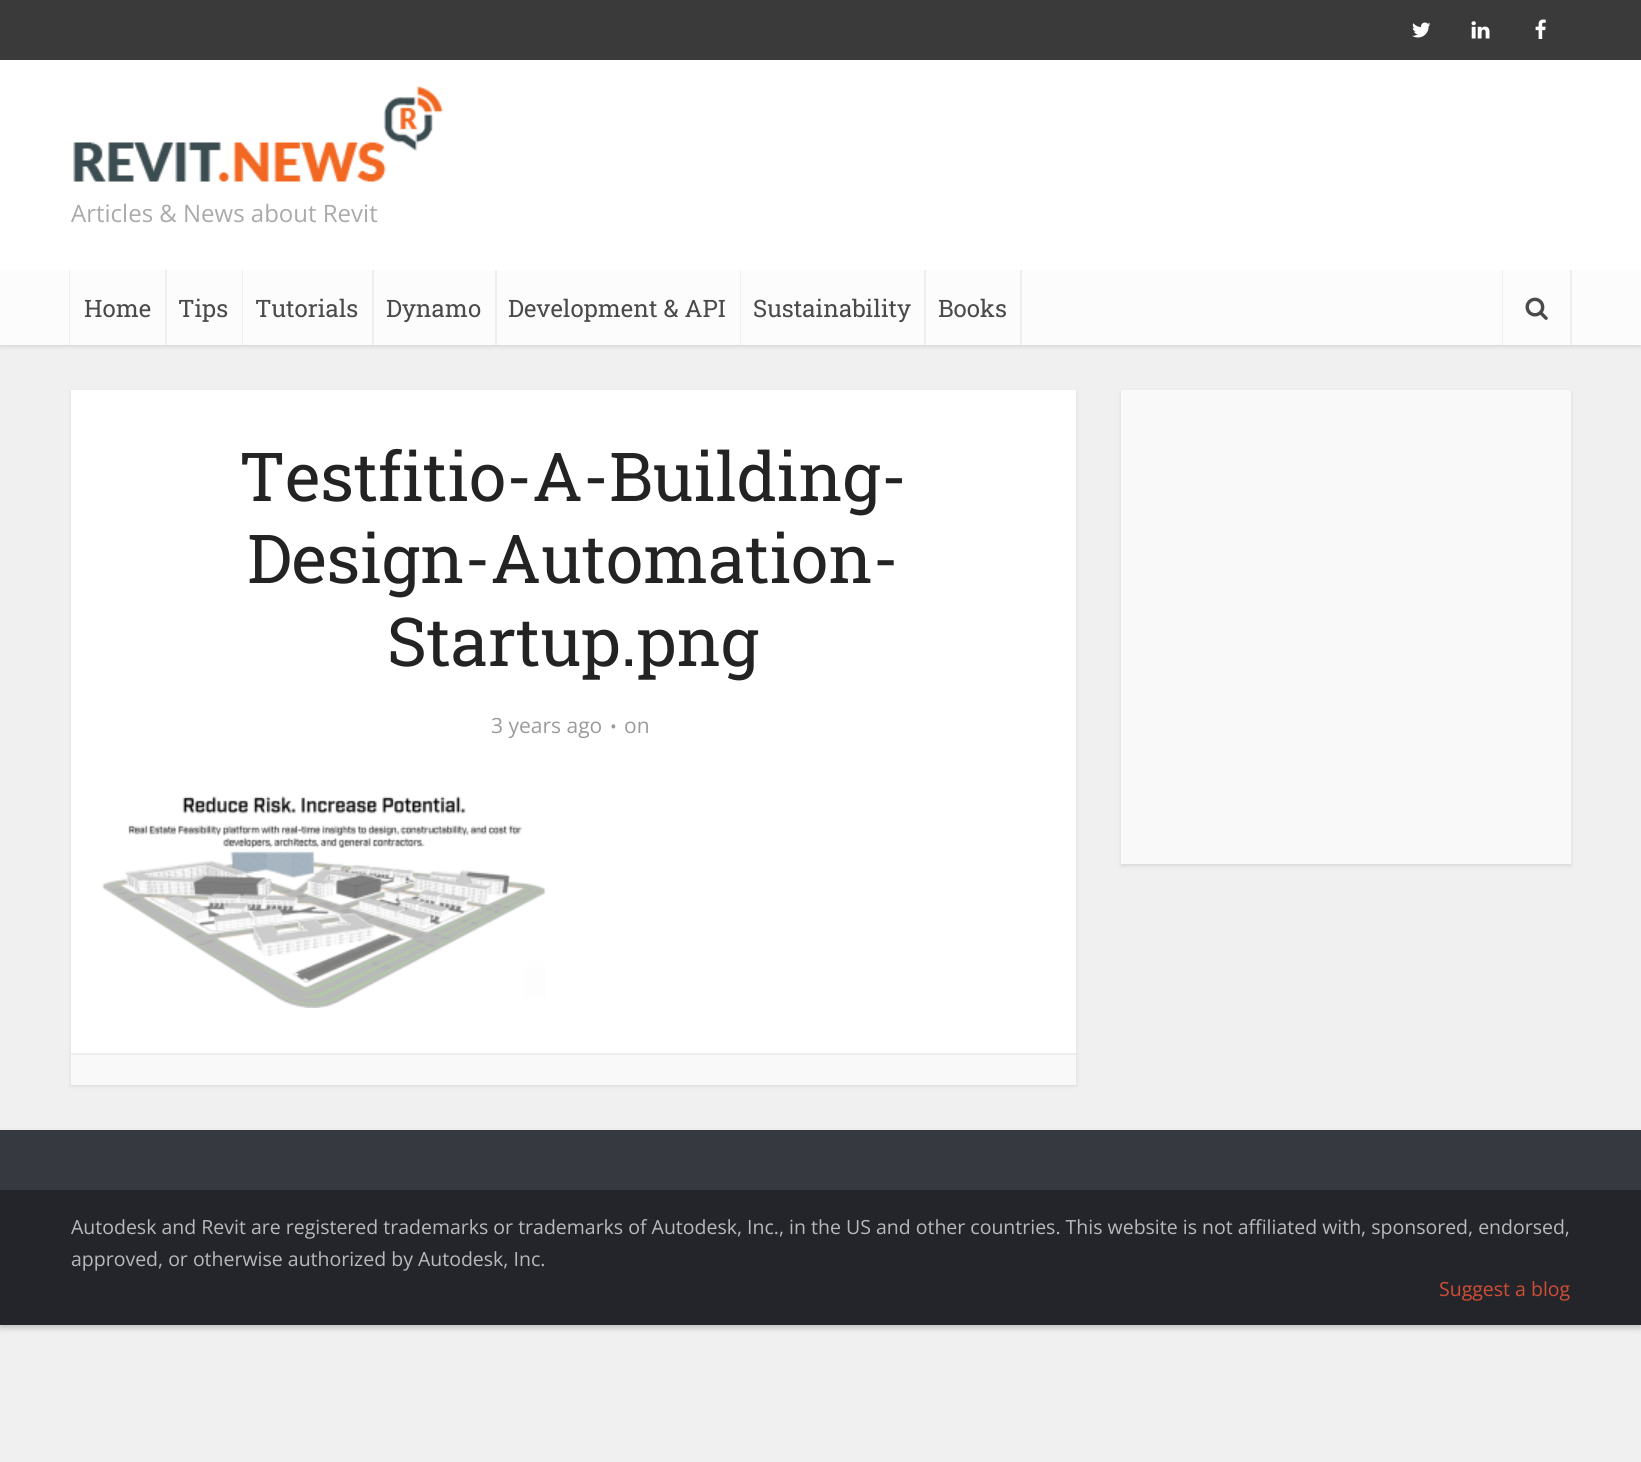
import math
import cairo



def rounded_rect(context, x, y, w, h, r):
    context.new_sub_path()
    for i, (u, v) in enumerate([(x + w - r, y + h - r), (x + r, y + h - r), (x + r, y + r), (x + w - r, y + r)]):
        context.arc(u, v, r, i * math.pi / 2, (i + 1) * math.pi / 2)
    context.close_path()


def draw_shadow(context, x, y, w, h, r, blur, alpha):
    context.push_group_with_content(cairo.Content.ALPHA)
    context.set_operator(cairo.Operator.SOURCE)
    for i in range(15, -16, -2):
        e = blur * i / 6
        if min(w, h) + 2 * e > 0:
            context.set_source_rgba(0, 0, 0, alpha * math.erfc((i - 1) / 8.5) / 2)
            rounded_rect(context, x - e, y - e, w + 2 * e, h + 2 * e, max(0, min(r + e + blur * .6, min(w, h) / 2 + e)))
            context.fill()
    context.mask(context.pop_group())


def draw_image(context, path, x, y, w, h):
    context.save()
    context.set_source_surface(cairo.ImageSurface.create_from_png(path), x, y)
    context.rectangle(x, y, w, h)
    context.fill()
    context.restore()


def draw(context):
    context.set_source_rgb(240 / 255, 240 / 255, 240 / 255)
    context.paint()
    context.set_source_rgb(0, 0, 0)
    draw_shadow(context, 0, 2, 1641, 345, 0, 2, 0.1)
    context.set_source_rgb(1, 1, 1)
    context.rectangle(0, 60, 1641, 210)
    context.fill()
    context.set_source_rgb(58 / 255, 58 / 255, 58 / 255)
    context.rectangle(0, 0, 1641, 60)
    context.fill()
    draw_image(context, "images/1.png", 1412, 22, 19, 16)
    draw_image(context, "images/2.png", 1471, 21, 19, 18)
    draw_image(context, "images/3.png", 1535, 19, 11, 20)
    draw_image(context, "images/4.png", 73, 85, 370, 97)
    context.set_source_rgb(252 / 255, 252 / 255, 252 / 255)
    context.rectangle(0, 270, 1641, 75)
    context.fill()
    context.set_source_rgb(239 / 255, 239 / 255, 239 / 255)
    context.rectangle(165, 270, 2, 75)
    context.fill()
    context.rectangle(69, 270, 1, 75)
    context.fill()
    context.rectangle(242, 270, 1, 75)
    context.fill()
    context.rectangle(372, 270, 2, 75)
    context.fill()
    context.rectangle(495, 270, 2, 75)
    context.fill()
    context.rectangle(740, 270, 1, 75)
    context.fill()
    context.rectangle(924, 270, 2, 75)
    context.fill()
    context.rectangle(1020, 270, 2, 75)
    context.fill()
    context.rectangle(1570, 270, 2, 75)
    context.fill()
    context.rectangle(1502, 270, 1, 75)
    context.fill()
    draw_image(context, "images/5.png", 1525, 297, 23, 23)
    context.set_source_rgb(0, 0, 0)
    draw_shadow(context, 71, 392, 1005, 694, 0, 2, 0.1)
    context.set_source_rgb(1, 1, 1)
    context.rectangle(71, 390, 1005, 663)
    context.fill()
    draw_image(context, "images/6.png", 102, 796, 444, 212)
    context.set_source_rgb(249 / 255, 249 / 255, 249 / 255)
    context.rectangle(71, 1055, 1005, 30)
    context.fill()
    context.set_source_rgb(237 / 255, 237 / 255, 237 / 255)
    context.rectangle(71, 1053, 1005, 2)
    context.fill()
    context.set_source_rgb(0, 0, 0)
    draw_shadow(context, 1121, 392, 450, 474, 0, 2, 0.1)
    context.set_source_rgb(249 / 255, 249 / 255, 249 / 255)
    context.rectangle(1121, 390, 450, 474)
    context.fill()
    context.set_source_rgb(0, 0, 0)
    draw_shadow(context, 0, 1133, 1641, 195, 0, 3, 0.2)
    context.set_source_rgb(55 / 255, 57 / 255, 65 / 255)
    context.rectangle(0, 1130, 1641, 60)
    context.fill()
    context.set_source_rgb(36 / 255, 37 / 255, 42 / 255)
    context.rectangle(0, 1190, 1641, 135)
    context.fill()
    context.select_font_face("Open Sans")
    context.set_font_size(24)
    context.set_source_rgb(170 / 255, 170 / 255, 170 / 255)
    context.move_to(71, 222)
    context.show_text("Articles & News about Revit")
    context.select_font_face("Roboto Slab")
    context.set_source_rgb(74 / 255, 74 / 255, 74 / 255)
    context.move_to(84, 317)
    context.show_text("Home")
    context.move_to(178, 317)
    context.show_text("Tips")
    context.move_to(255, 317)
    context.show_text("Tutorials")
    context.move_to(386, 317)
    context.show_text("Dynamo")
    context.move_to(508, 317)
    context.show_text("Development & API")
    context.move_to(753, 317)
    context.show_text("Sustainability")
    context.move_to(938, 317)
    context.show_text("Books")
    context.set_font_size(67.5)
    context.set_source_rgb(35 / 255, 35 / 255, 35 / 255)
    context.move_to(239, 501)
    context.show_text("Testfitio-A-Building-")
    context.move_to(247, 583)
    context.show_text("Design-Automation-")
    context.move_to(387, 666)
    context.show_text("Startup.png")
    context.select_font_face("Open Sans")
    context.set_font_size(21)
    context.set_source_rgb(155 / 255, 155 / 255, 155 / 255)
    context.move_to(491, 733)
    context.show_text("3 years ago")
    context.set_font_size(18)
    context.move_to(610, 733)
    context.show_text("•")
    context.set_font_size(21)
    context.move_to(624, 733)
    context.show_text("on")
    context.set_font_size(19.5)
    context.set_source_rgb(185 / 255, 185 / 255, 187 / 255)
    context.move_to(71, 1234)
    context.show_text("Autodesk and Revit are registered trademarks or trademarks of Autodesk, Inc., in the US and other countries. This website is not affiliated with, sponsored, endorsed,")
    context.move_to(71, 1266)
    context.show_text("approved, or otherwise authorized by Autodesk, Inc.")
    context.set_source_rgb(207 / 255, 77 / 255, 53 / 255)
    context.move_to(1439, 1296)
    context.show_text("Suggest a blog")


surface = cairo.ImageSurface(cairo.Format.RGB24, 1641, 1462)
context = cairo.Context(surface)
options = cairo.FontOptions()
options.set_hint_metrics(cairo.HintMetrics.OFF)
options.set_hint_style(cairo.HintStyle.NONE)
context.set_font_options(options)
context.set_miter_limit(4)
draw(context)
surface.write_to_png("out.png")
